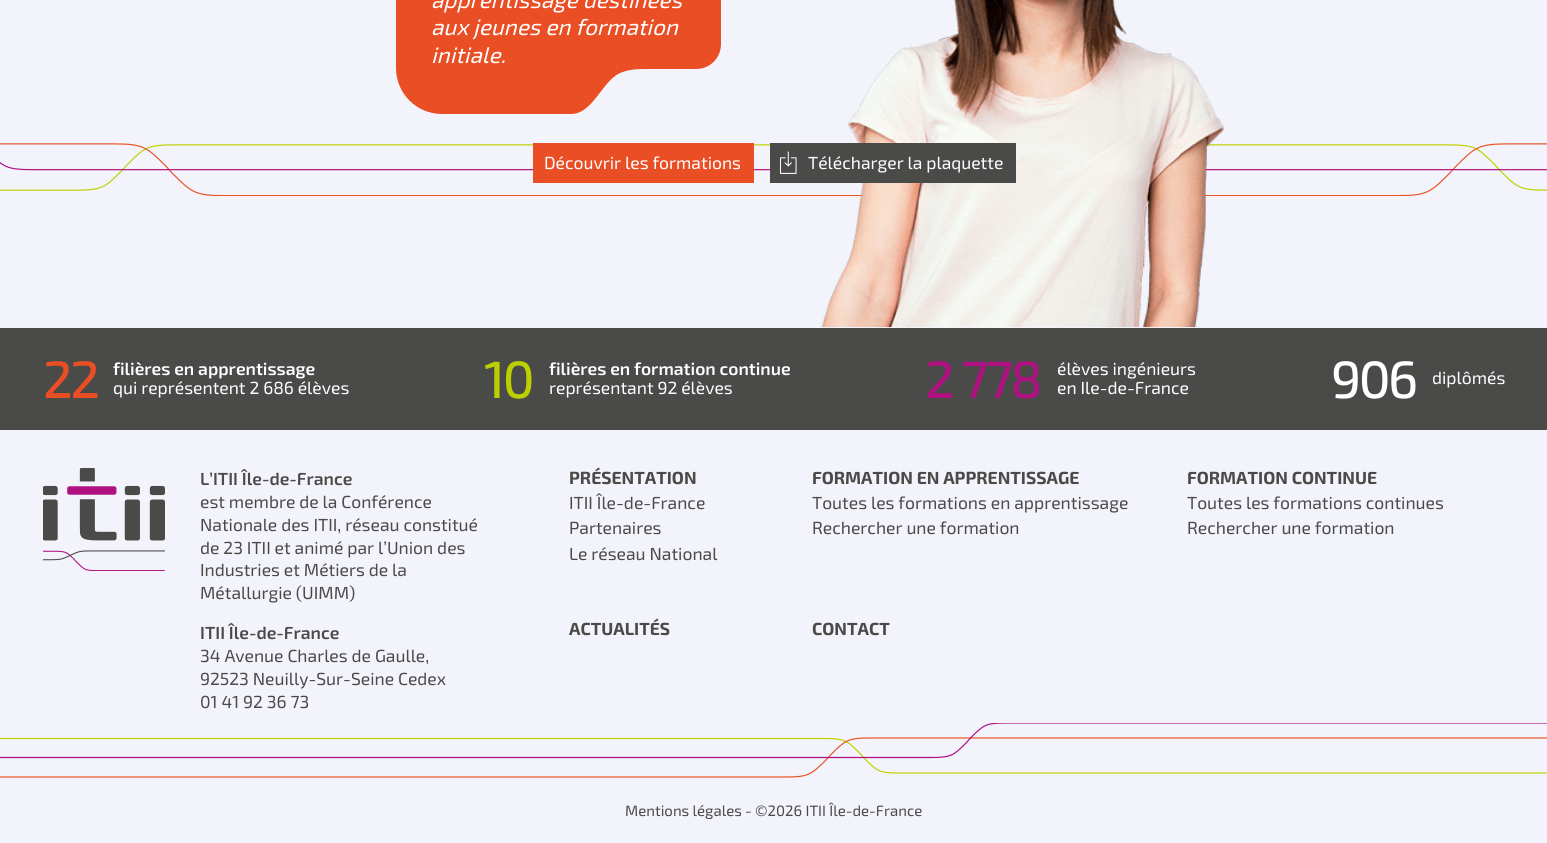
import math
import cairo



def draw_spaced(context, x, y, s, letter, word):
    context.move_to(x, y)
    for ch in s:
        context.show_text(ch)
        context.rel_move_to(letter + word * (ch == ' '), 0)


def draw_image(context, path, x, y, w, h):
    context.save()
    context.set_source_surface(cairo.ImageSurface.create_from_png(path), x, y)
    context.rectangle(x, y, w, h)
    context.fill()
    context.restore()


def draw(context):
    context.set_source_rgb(74 / 255, 74 / 255, 73 / 255)
    context.paint()
    context.set_source_rgb(243 / 255, 244 / 255, 251 / 255)
    context.rectangle(0, 0, 1547, 328)
    context.fill()
    draw_image(context, "images/1.png", 0, 143, 1547, 53)
    context.set_source_rgb(233 / 255, 78 / 255, 36 / 255)
    context.new_path()
    context.move_to(459, -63)
    context.line_to(658, -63)
    context.curve_to(693, -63, 721, -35, 721, 0)
    context.line_to(721, 44)
    context.curve_to(721, 58, 710, 69, 696, 69)
    context.line_to(396, 69)
    context.line_to(396, 0)
    context.curve_to(396, -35, 424, -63, 459, -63)
    context.close_path()
    context.fill()
    context.new_path()
    context.move_to(396, 68)
    context.line_to(573, 68)
    context.line_to(573, 114)
    context.line_to(442, 114)
    context.curve_to(416.5, 114, 396, 93.5, 396, 68)
    context.close_path()
    context.fill()
    context.new_path()
    context.move_to(571, 69)
    context.line_to(571, 114)
    context.curve_to(592, 114, 601, 84, 618, 74)
    context.curve_to(626, 70, 635, 69, 644, 69)
    context.close_path()
    context.fill()
    draw_image(context, "images/2.png", 821, 0, 403, 328)
    context.rectangle(533, 143, 221, 40)
    context.fill()
    context.set_source_rgb(74 / 255, 74 / 255, 73 / 255)
    context.rectangle(770, 143, 246, 40)
    context.fill()
    draw_image(context, "images/3.png", 780, 151, 17, 23)
    context.set_source_rgb(243 / 255, 244 / 255, 251 / 255)
    context.rectangle(0, 430, 1547, 413)
    context.fill()
    draw_image(context, "images/4.png", 43, 468, 122, 103)
    context.new_path()
    context.move_to(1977.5, 773)
    context.line_to(899, 773)
    context.curve_to(878.5, 773, 877, 771, 864, 758)
    context.line_to(860, 753.5)
    context.curve_to(847, 740.5, 845, 738.5, 824.5, 738.5)
    context.line_to(-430, 738.5)
    context.set_source_rgb(192 / 255, 208 / 255, 0)
    context.set_line_width(1.2)
    context.stroke()
    context.new_path()
    context.move_to(-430, 777)
    context.line_to(786, 777)
    context.curve_to(809, 777, 811, 774.5, 826, 760)
    context.line_to(830.5, 755)
    context.curve_to(845.5, 740, 847.5, 738, 870.5, 738)
    context.line_to(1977.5, 738)
    context.set_source_rgb(233 / 255, 84 / 255, 38 / 255)
    context.stroke()
    context.save()
    context.rectangle(0, 723, 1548, 55)
    context.clip()
    context.new_path()
    context.move_to(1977.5, 723)
    context.line_to(1005.5, 723)
    context.curve_to(985.5, 723, 983.5, 725, 970.5, 738)
    context.line_to(966.5, 742.5)
    context.curve_to(953.5, 755.5, 951.5, 757.5, 931, 757.5)
    context.line_to(-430, 757.5)
    context.set_source_rgb(174 / 255, 18 / 255, 128 / 255)
    context.stroke()
    context.restore()
    context.select_font_face("Exo 2", cairo.FontSlant.ITALIC)
    context.set_font_size(22.5)
    context.set_source_rgb(1, 1, 1)
    context.move_to(431, 8)
    context.show_text("apprentissage destinées")
    context.move_to(431, 35)
    context.show_text("aux jeunes en formation")
    context.move_to(431, 63)
    context.show_text("initiale.")
    context.select_font_face("Exo 2")
    context.set_font_size(17.5)
    context.move_to(544, 169)
    context.show_text("Découvrir les formations")
    context.move_to(808, 169)
    context.show_text("Télécharger la plaquette")
    context.select_font_face("Exo 2 Medium")
    context.set_font_size(52.5)
    context.set_source_rgb(233 / 255, 78 / 255, 36 / 255)
    draw_spaced(context, 43, 398, "22", -2.5, 0)
    context.select_font_face("Exo 2 SemiBold")
    context.set_font_size(17.5)
    context.set_source_rgb(1, 1, 1)
    context.move_to(113, 375)
    context.show_text("filières en apprentissage")
    context.select_font_face("Exo 2")
    context.move_to(113, 394)
    context.show_text("qui représentent 2 686 élèves")
    context.select_font_face("Exo 2 Medium")
    context.set_font_size(52.5)
    context.set_source_rgb(188 / 255, 207 / 255, 0)
    draw_spaced(context, 484, 398, "10", -2.5, 0)
    context.select_font_face("Exo 2 SemiBold")
    context.set_font_size(17.5)
    context.set_source_rgb(1, 1, 1)
    context.move_to(549, 375)
    context.show_text("filières en formation continue")
    context.select_font_face("Exo 2")
    context.move_to(549, 394)
    context.show_text("représentant 92 élèves")
    context.select_font_face("Exo 2 Medium")
    context.set_font_size(52.5)
    context.set_source_rgb(175 / 255, 18 / 255, 128 / 255)
    draw_spaced(context, 925, 398, "2 778", -2.5, 0)
    context.select_font_face("Exo 2")
    context.set_font_size(17.5)
    context.set_source_rgb(1, 1, 1)
    context.move_to(1057, 375)
    context.show_text("élèves ingénieurs")
    context.move_to(1057, 394)
    context.show_text("en Ile-de-France")
    context.select_font_face("Exo 2 Medium")
    context.set_font_size(52.5)
    draw_spaced(context, 1331, 398, "906", -2.5, 0)
    context.select_font_face("Exo 2")
    context.set_font_size(17.5)
    context.move_to(1432, 384)
    context.show_text("diplômés")
    context.select_font_face("Exo 2 SemiBold")
    context.set_source_rgb(74 / 255, 74 / 255, 73 / 255)
    context.move_to(200, 485)
    context.show_text("L’ITII Île-de-France")
    context.select_font_face("Exo 2")
    context.move_to(200, 508)
    context.show_text("est membre de la Conférence")
    context.move_to(200, 531)
    context.show_text("Nationale des ITII, réseau constitué")
    context.move_to(200, 554)
    context.show_text("de 23 ITII et animé par l’Union des")
    context.move_to(200, 576)
    context.show_text("Industries et Métiers de la")
    context.move_to(200, 599)
    context.show_text("Métallurgie (UIMM)")
    context.select_font_face("Exo 2 SemiBold")
    context.move_to(200, 639)
    context.show_text("ITII Île-de-France")
    context.select_font_face("Exo 2")
    context.move_to(200, 662)
    context.show_text("34 Avenue Charles de Gaulle,")
    context.move_to(200, 685)
    context.show_text("92523 Neuilly-Sur-Seine Cedex")
    context.move_to(200, 708)
    context.show_text("01 41 92 36 73")
    context.select_font_face("Exo 2", cairo.FontSlant.NORMAL, cairo.FontWeight.BOLD)
    context.move_to(569, 484)
    context.show_text("PRÉSENTATION")
    context.select_font_face("Exo 2")
    context.move_to(569, 509)
    context.show_text("ITII Île-de-France")
    context.move_to(569, 534)
    context.show_text("Partenaires")
    context.move_to(569, 560)
    context.show_text("Le réseau National")
    context.select_font_face("Exo 2", cairo.FontSlant.NORMAL, cairo.FontWeight.BOLD)
    context.move_to(812, 484)
    context.show_text("FORMATION EN APPRENTISSAGE")
    context.select_font_face("Exo 2")
    context.move_to(812, 509)
    context.show_text("Toutes les formations en apprentissage")
    context.move_to(812, 534)
    context.show_text("Rechercher une formation")
    context.select_font_face("Exo 2", cairo.FontSlant.NORMAL, cairo.FontWeight.BOLD)
    context.move_to(1187, 484)
    context.show_text("FORMATION CONTINUE")
    context.select_font_face("Exo 2")
    context.move_to(1187, 509)
    context.show_text("Toutes les formations continues")
    context.move_to(1187, 534)
    context.show_text("Rechercher une formation")
    context.select_font_face("Exo 2", cairo.FontSlant.NORMAL, cairo.FontWeight.BOLD)
    context.move_to(569, 635)
    context.show_text("ACTUALITÉS")
    context.move_to(812, 635)
    context.show_text("CONTACT")
    context.select_font_face("Exo 2")
    context.set_font_size(15)
    context.move_to(625, 816)
    context.show_text("Mentions légales")
    context.move_to(745, 816)
    context.show_text("- ©2026 ITII Île-de-France")


surface = cairo.ImageSurface(cairo.Format.RGB24, 1547, 843)
context = cairo.Context(surface)
options = cairo.FontOptions()
options.set_hint_metrics(cairo.HintMetrics.OFF)
options.set_hint_style(cairo.HintStyle.NONE)
context.set_font_options(options)
context.set_miter_limit(4)
draw(context)
surface.write_to_png("out.png")
